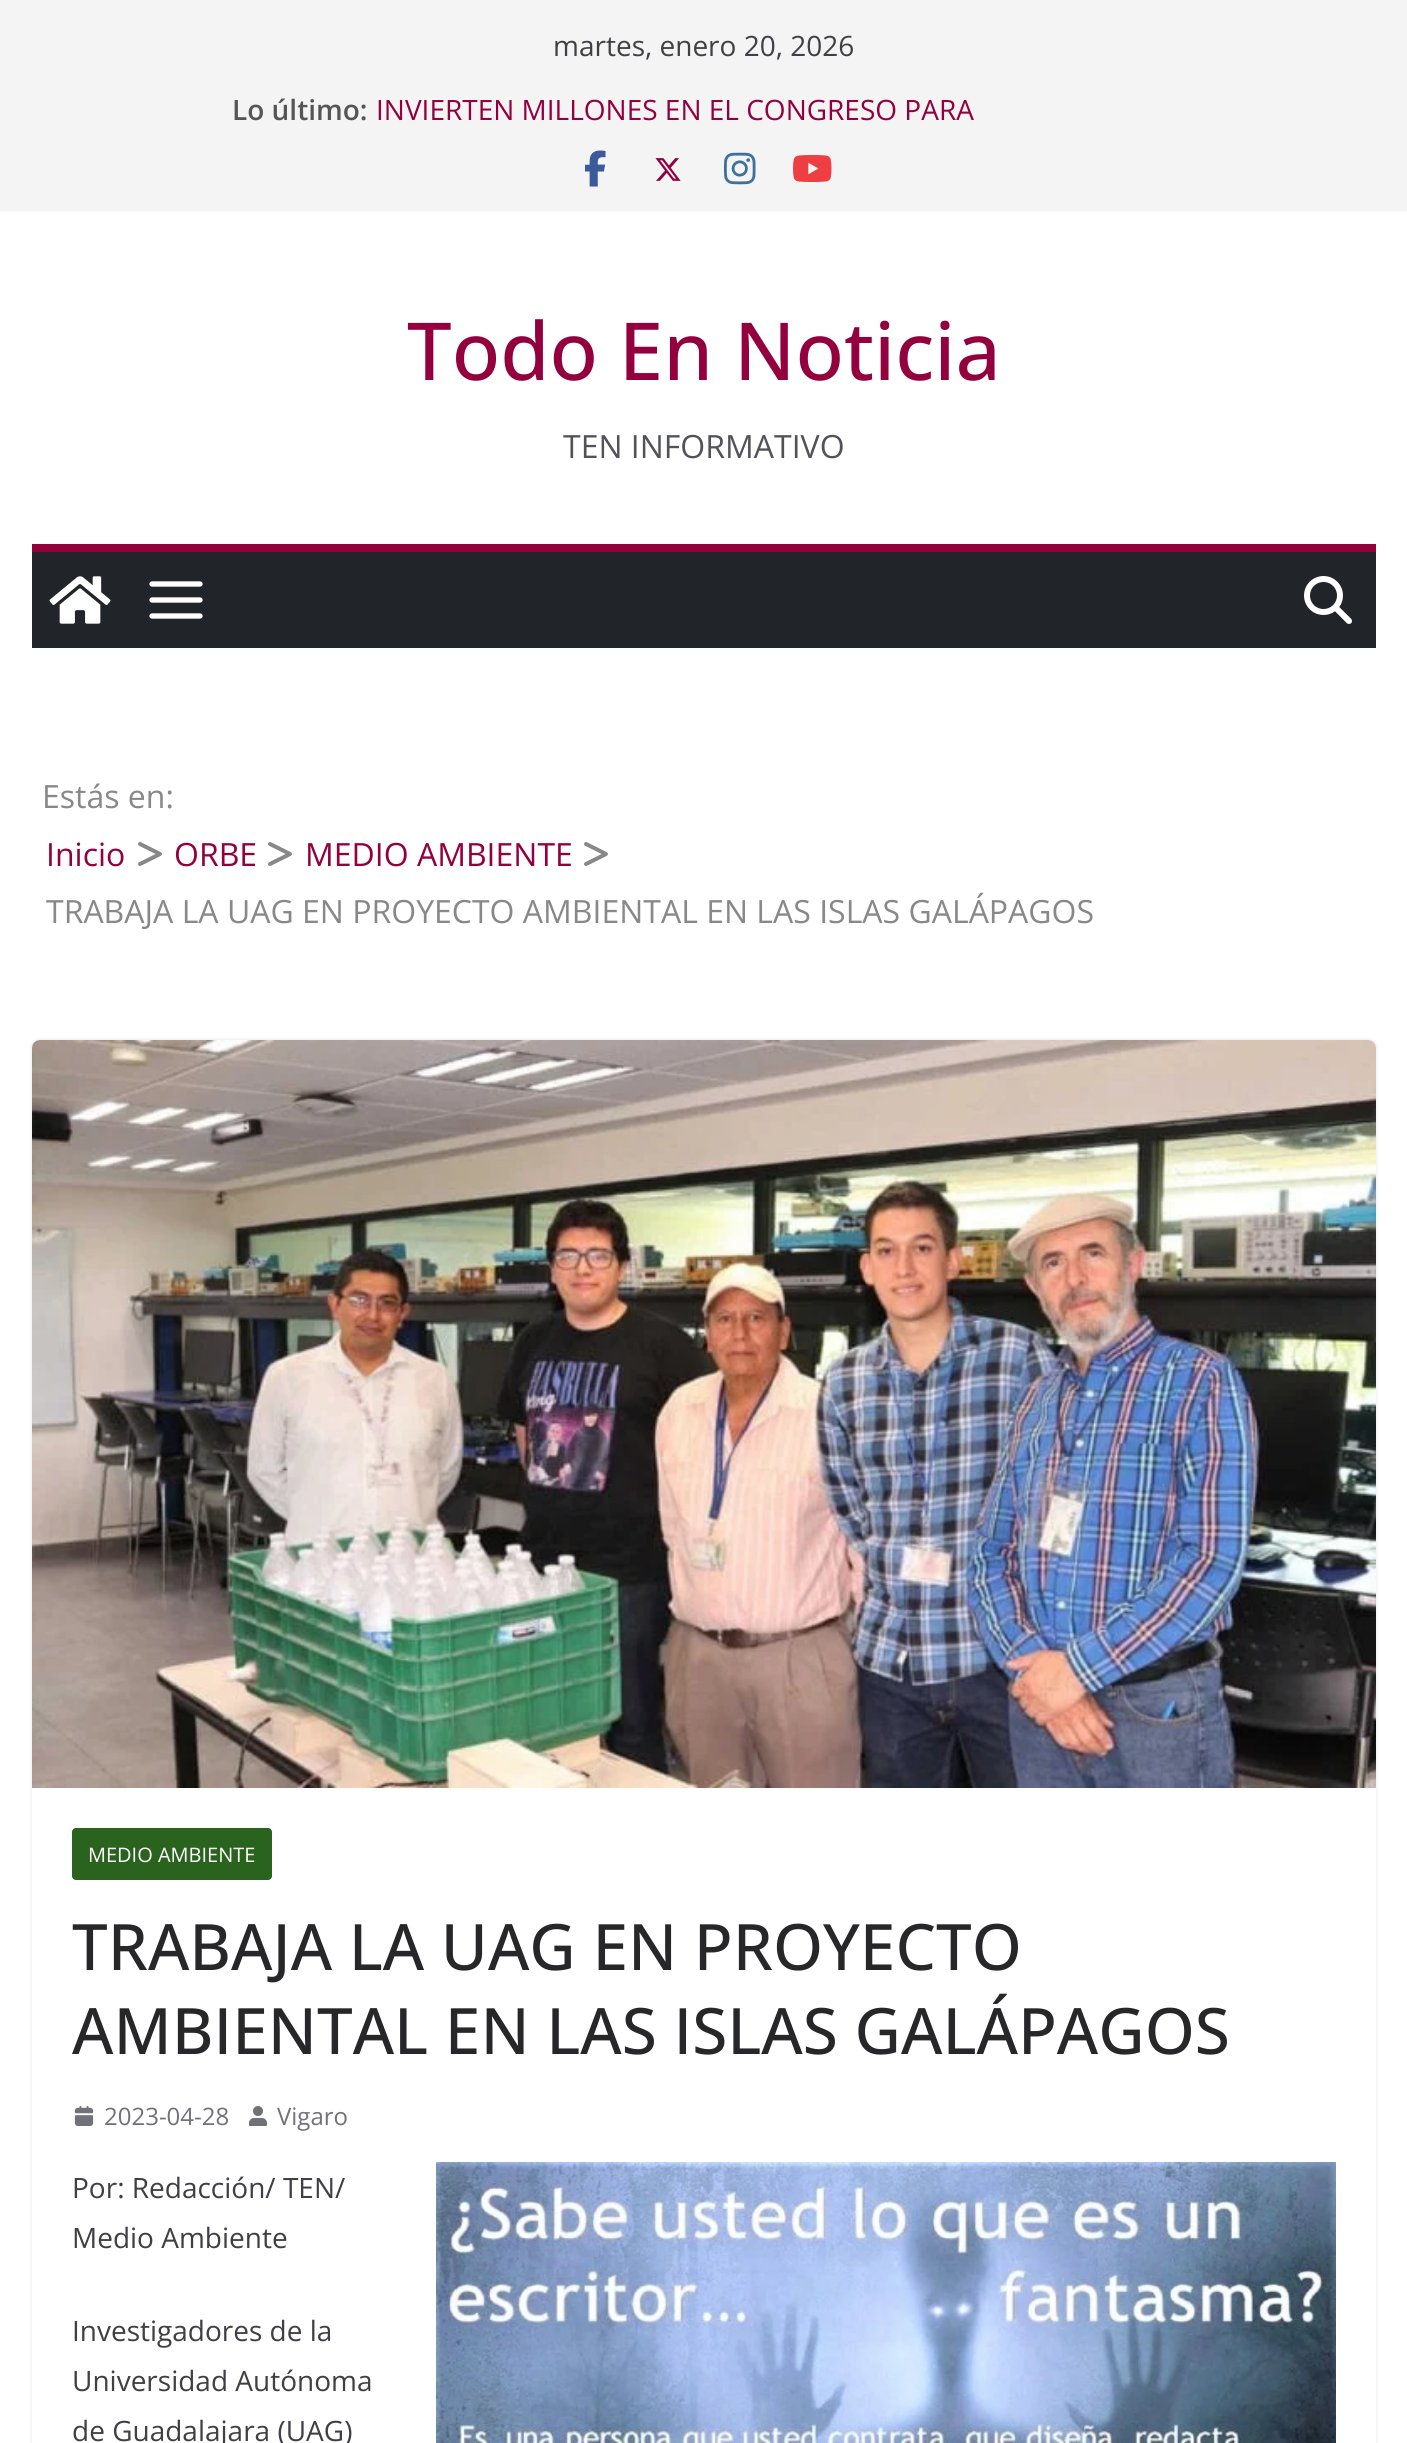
import math
import cairo



def rounded_rect(context, x, y, w, h, r):
    context.new_sub_path()
    for i, (u, v) in enumerate([(x + w - r, y + h - r), (x + r, y + h - r), (x + r, y + r), (x + w - r, y + r)]):
        context.arc(u, v, r, i * math.pi / 2, (i + 1) * math.pi / 2)
    context.close_path()


def draw_shadow(context, x, y, w, h, r, blur, alpha):
    context.push_group_with_content(cairo.Content.ALPHA)
    context.set_operator(cairo.Operator.SOURCE)
    for i in range(15, -16, -2):
        e = blur * i / 6
        if min(w, h) + 2 * e > 0:
            context.set_source_rgba(0, 0, 0, alpha * math.erfc((i - 1) / 8.5) / 2)
            rounded_rect(context, x - e, y - e, w + 2 * e, h + 2 * e, max(0, min(r + e + blur * .6, min(w, h) / 2 + e)))
            context.fill()
    context.mask(context.pop_group())


def draw_image(context, path, x, y, w, h):
    context.save()
    context.set_source_surface(cairo.ImageSurface.create_from_png(path), x, y)
    context.rectangle(x, y, w, h)
    context.fill()
    context.restore()


def draw(context):
    context.set_source_rgb(1, 1, 1)
    context.paint()
    context.set_source_rgb(0, 0, 0)
    draw_shadow(context, 0, 0, 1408, 210, 0, 2, 0.1)
    context.set_source_rgb(244 / 255, 244 / 255, 245 / 255)
    context.rectangle(0, 0, 1407, 210)
    context.fill()
    draw_image(context, "images/1.png", 585, 150, 21, 37)
    draw_image(context, "images/2.png", 655, 158, 26, 23)
    draw_image(context, "images/3.png", 724, 152, 32, 33)
    draw_image(context, "images/4.png", 793, 155, 39, 27)
    context.set_source_rgb(33 / 255, 37 / 255, 41 / 255)
    context.rectangle(32, 552, 1344, 96)
    context.fill()
    context.set_source_rgb(148 / 255, 0, 62 / 255)
    context.rectangle(32, 544, 1344, 8)
    context.fill()
    draw_image(context, "images/5.png", 49, 576, 62, 48)
    draw_image(context, "images/6.png", 149, 581, 54, 38)
    draw_image(context, "images/7.png", 1304, 576, 48, 48)
    draw_image(context, "images/8.png", 138, 842, 24, 24)
    draw_image(context, "images/8.png", 268, 842, 24, 24)
    draw_image(context, "images/8.png", 584, 842, 24, 24)
    context.save()
    context.set_fill_rule(cairo.FillRule.EVEN_ODD)
    context.new_path()
    context.move_to(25, 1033)
    context.line_to(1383, 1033)
    context.line_to(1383, 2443)
    context.line_to(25, 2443)
    context.close_path()
    context.move_to(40, 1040)
    context.line_to(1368, 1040)
    context.curve_to(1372.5, 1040, 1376, 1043.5, 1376, 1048)
    context.line_to(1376, 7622)
    context.curve_to(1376, 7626.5, 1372.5, 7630, 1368, 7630)
    context.line_to(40, 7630)
    context.curve_to(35.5, 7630, 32, 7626.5, 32, 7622)
    context.line_to(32, 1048)
    context.curve_to(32, 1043.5, 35.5, 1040, 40, 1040)
    context.close_path()
    context.clip()
    context.set_source_rgb(228 / 255, 228 / 255, 231 / 255)
    draw_shadow(context, 32, 1040, 1344, 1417, 8, 2, 1)
    context.restore()
    draw_image(context, "images/9.png", 32, 1040, 1344, 748)
    context.set_source_rgb(41 / 255, 99 / 255, 30 / 255)
    rounded_rect(context, 72, 1828, 200, 52, 4)
    context.fill()
    draw_image(context, "images/10.png", 74, 2106, 20, 20)
    draw_image(context, "images/11.png", 249, 2106, 18, 20)
    draw_image(context, "images/12.png", 436, 2162, 900, 281)
    context.select_font_face("Open Sans")
    context.set_font_size(28)
    context.set_source_rgb(63 / 255, 63 / 255, 70 / 255)
    context.move_to(553, 56)
    context.show_text("martes, enero 20, 2026")
    context.select_font_face("Open Sans SemiBold")
    context.set_source_rgb(85 / 255, 85 / 255, 85 / 255)
    context.move_to(232, 120)
    context.show_text("Lo último:")
    context.select_font_face("Open Sans")
    context.set_source_rgb(148 / 255, 0, 62 / 255)
    context.move_to(376, 120)
    context.show_text("INVIERTEN MILLONES EN EL CONGRESO PARA")
    context.select_font_face("Open Sans Medium")
    context.set_font_size(80)
    context.move_to(407, 380)
    context.show_text("Todo En Noticia")
    context.select_font_face("Open Sans")
    context.set_font_size(32)
    context.set_source_rgb(82 / 255, 82 / 255, 91 / 255)
    context.move_to(563, 458)
    context.show_text("TEN INFORMATIVO")
    context.set_source_rgb(136 / 255, 136 / 255, 136 / 255)
    context.move_to(42, 808)
    context.show_text("Estás en:")
    context.set_source_rgb(148 / 255, 0, 62 / 255)
    context.move_to(46, 866)
    context.show_text("Inicio")
    context.move_to(174, 866)
    context.show_text("ORBE")
    context.move_to(305, 866)
    context.show_text("MEDIO AMBIENTE")
    context.set_source_rgb(136 / 255, 136 / 255, 136 / 255)
    context.move_to(46, 923)
    context.show_text("TRABAJA LA UAG EN PROYECTO AMBIENTAL EN LAS ISLAS GALÁPAGOS")
    context.set_font_size(20)
    context.set_source_rgb(1, 1, 1)
    context.move_to(88, 1862)
    context.show_text("MEDIO AMBIENTE")
    context.select_font_face("Open Sans Medium")
    context.set_font_size(64)
    context.set_source_rgb(39 / 255, 39 / 255, 42 / 255)
    context.move_to(72, 1970)
    context.show_text("TRABAJA LA UAG EN PROYECTO")
    context.move_to(72, 2054)
    context.show_text("AMBIENTAL EN LAS ISLAS GALÁPAGOS")
    context.select_font_face("Open Sans")
    context.set_font_size(24)
    context.set_source_rgb(113 / 255, 113 / 255, 122 / 255)
    context.move_to(104, 2125)
    context.show_text("2023-04-28")
    context.move_to(277, 2125)
    context.show_text("Vigaro")
    context.set_font_size(28)
    context.set_source_rgb(63 / 255, 63 / 255, 70 / 255)
    context.move_to(72, 2198)
    context.show_text("Por: Redacción/ TEN/")
    context.move_to(72, 2248)
    context.show_text("Medio Ambiente")
    context.move_to(72, 2341)
    context.show_text("Investigadores de la")
    context.move_to(72, 2391)
    context.show_text("Universidad Autónoma")
    context.move_to(72, 2441)
    context.show_text("de Guadalajara (UAG)")


surface = cairo.ImageSurface(cairo.Format.RGB24, 1407, 2443)
context = cairo.Context(surface)
options = cairo.FontOptions()
options.set_hint_metrics(cairo.HintMetrics.OFF)
options.set_hint_style(cairo.HintStyle.NONE)
context.set_font_options(options)
context.set_miter_limit(4)
draw(context)
surface.write_to_png("out.png")
